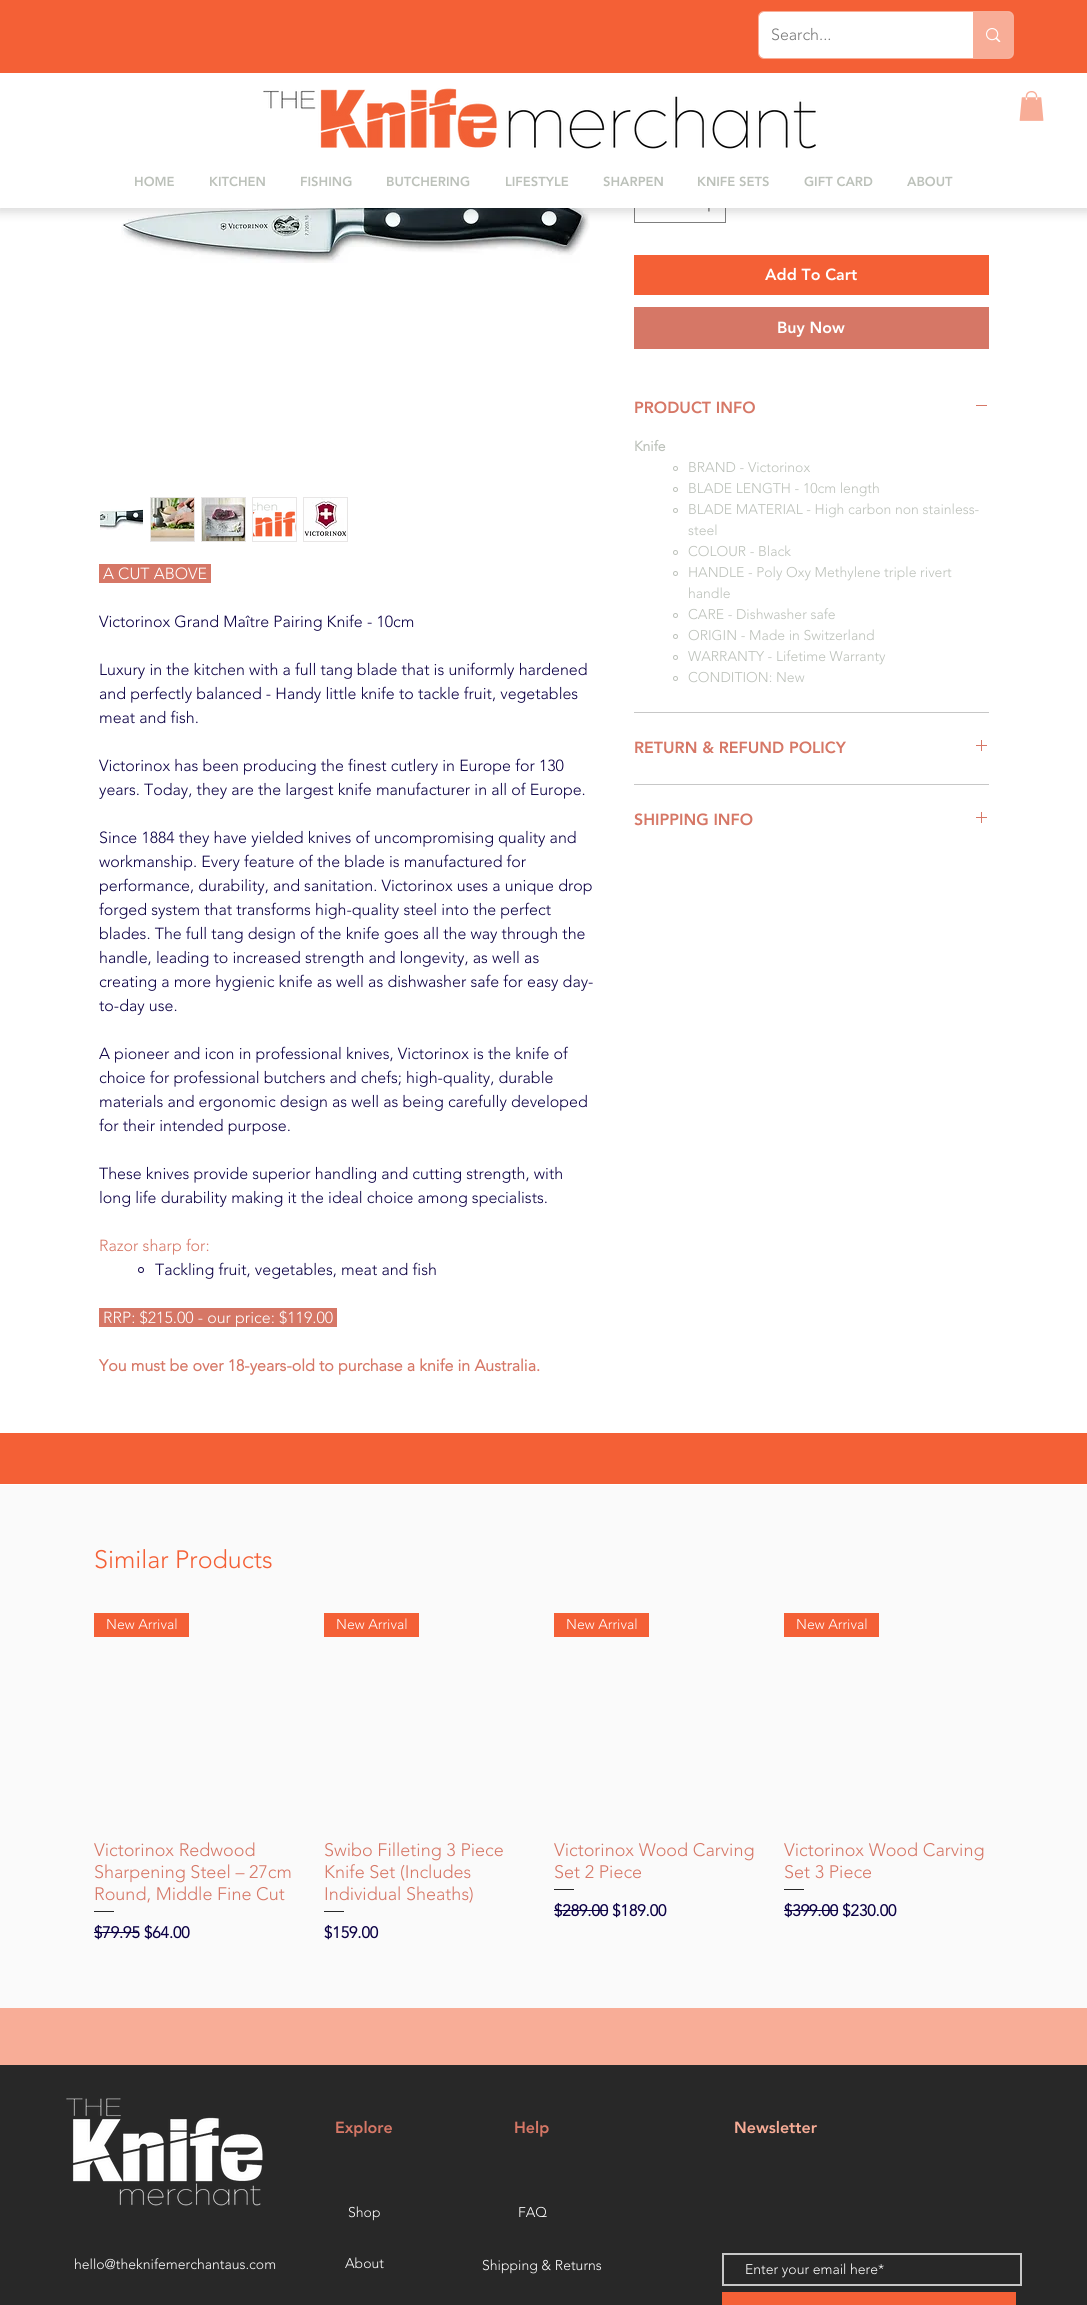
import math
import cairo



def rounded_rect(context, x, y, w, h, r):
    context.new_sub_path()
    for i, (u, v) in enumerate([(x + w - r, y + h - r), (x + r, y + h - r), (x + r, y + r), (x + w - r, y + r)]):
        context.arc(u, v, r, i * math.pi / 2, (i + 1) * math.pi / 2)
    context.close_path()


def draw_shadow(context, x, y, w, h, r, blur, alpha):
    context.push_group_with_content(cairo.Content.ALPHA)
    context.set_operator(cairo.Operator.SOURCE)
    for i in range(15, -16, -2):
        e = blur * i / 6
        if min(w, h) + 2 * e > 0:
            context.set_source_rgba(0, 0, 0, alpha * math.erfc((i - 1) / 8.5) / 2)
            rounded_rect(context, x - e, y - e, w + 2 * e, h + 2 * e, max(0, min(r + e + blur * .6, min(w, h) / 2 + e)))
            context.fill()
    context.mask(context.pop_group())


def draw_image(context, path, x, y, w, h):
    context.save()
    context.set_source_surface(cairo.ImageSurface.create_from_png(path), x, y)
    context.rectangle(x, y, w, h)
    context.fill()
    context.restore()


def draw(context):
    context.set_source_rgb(1, 1, 1)
    context.paint()
    draw_image(context, "images/4.png", 121, 208, 469, 55)
    context.rectangle(634.5, 186.5, 91, 36)
    context.set_source_rgb(126 / 255, 126 / 255, 126 / 255)
    context.set_line_width(1)
    context.stroke()
    draw_image(context, "images/10.png", 708, 208, 2, 4)
    context.set_source_rgb(0, 0, 0)
    draw_shadow(context, -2, 0, 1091, 212, 0, 5.5, 0.15)
    context.set_source_rgb(1, 1, 1)
    context.rectangle(0, 73, 1087, 135)
    context.fill()
    context.set_source_rgb(244 / 255, 96 / 255, 54 / 255)
    context.rectangle(0, 0, 1087, 73)
    context.fill()
    rounded_rect(context, 758.5, 11.5, 255, 47, 5.5)
    context.set_source_rgb(248 / 255, 173 / 255, 151 / 255)
    context.stroke()
    context.set_source_rgb(1, 1, 1)
    rounded_rect(context, 759, 12, 254, 46, 5)
    context.fill()
    context.set_source_rgb(248 / 255, 173 / 255, 151 / 255)
    context.new_path()
    context.move_to(973, 12)
    context.line_to(1008, 12)
    context.curve_to(1011, 12, 1013, 14, 1013, 17)
    context.line_to(1013, 53)
    context.curve_to(1013, 56, 1011, 58, 1008, 58)
    context.line_to(973, 58)
    context.close_path()
    context.fill()
    draw_image(context, "images/1.png", 986, 28, 15, 14)
    draw_image(context, "images/2.png", 263, 88, 555, 61)
    draw_image(context, "images/3.png", 1019, 91, 25, 30)
    draw_image(context, "images/5.png", 100, 509, 43, 21)
    context.rectangle(150.5, 497.5, 44, 44)
    context.set_source_rgb(232 / 255, 230 / 255, 230 / 255)
    context.stroke()
    draw_image(context, "images/6.png", 151, 498, 43, 43)
    context.rectangle(201.5, 497.5, 44, 44)
    context.stroke()
    draw_image(context, "images/7.png", 202, 498, 43, 43)
    context.rectangle(252.5, 497.5, 44, 44)
    context.stroke()
    draw_image(context, "images/8.png", 253, 502, 43, 35)
    context.rectangle(303.5, 497.5, 44, 44)
    context.stroke()
    draw_image(context, "images/9.png", 304, 498, 43, 40)
    context.set_source_rgb(214 / 255, 119 / 255, 102 / 255)
    context.rectangle(99, 564, 112, 19)
    context.fill()
    context.arc(141, 1270, 2.5, 0, 2 * math.pi)
    context.set_source_rgb(12 / 255, 1 / 255, 69 / 255)
    context.stroke()
    context.set_source_rgb(214 / 255, 119 / 255, 102 / 255)
    context.rectangle(99, 1308, 238, 19)
    context.fill()
    context.set_source_rgb(244 / 255, 96 / 255, 54 / 255)
    context.rectangle(634, 255, 355, 40)
    context.fill()
    context.set_source_rgb(214 / 255, 119 / 255, 102 / 255)
    context.rectangle(634, 307, 355, 42)
    context.fill()
    context.set_source_rgb(199 / 255, 199 / 255, 199 / 255)
    context.rectangle(634, 712, 355, 1)
    context.fill()
    context.set_source_rgb(214 / 255, 119 / 255, 102 / 255)
    context.rectangle(976, 405, 11, 1)
    context.fill()
    context.arc(675.5, 468.5, 2, 0, 2 * math.pi)
    context.set_source_rgb(188 / 255, 193 / 255, 186 / 255)
    context.stroke()
    context.arc(675.5, 489.5, 2, 0, 2 * math.pi)
    context.stroke()
    context.arc(675.5, 510.5, 2, 0, 2 * math.pi)
    context.stroke()
    context.arc(675.5, 552.5, 2, 0, 2 * math.pi)
    context.stroke()
    context.arc(675.5, 573.5, 2, 0, 2 * math.pi)
    context.stroke()
    context.arc(675.5, 615.5, 2, 0, 2 * math.pi)
    context.stroke()
    context.arc(675.5, 636.5, 2, 0, 2 * math.pi)
    context.stroke()
    context.arc(675.5, 657.5, 2, 0, 2 * math.pi)
    context.stroke()
    context.arc(675.5, 678.5, 2, 0, 2 * math.pi)
    context.stroke()
    context.set_source_rgb(199 / 255, 199 / 255, 199 / 255)
    context.rectangle(634, 784, 355, 1)
    context.fill()
    draw_image(context, "images/11.png", 976, 740, 11, 11)
    draw_image(context, "images/11.png", 976, 812, 11, 11)
    context.set_source_rgb(244 / 255, 96 / 255, 54 / 255)
    context.rectangle(0, 1433, 1087, 51)
    context.fill()
    context.set_source_rgb(250 / 255, 250 / 255, 250 / 255)
    context.rectangle(0, 1485, 1087, 523)
    context.fill()
    context.set_source_rgb(244 / 255, 96 / 255, 54 / 255)
    context.rectangle(94, 1613, 95, 24)
    context.fill()
    context.set_source_rgb(40 / 255, 40 / 255, 40 / 255)
    context.rectangle(94, 1911, 20, 1)
    context.fill()
    context.set_source_rgb(12 / 255, 1 / 255, 69 / 255)
    context.rectangle(94, 1932, 45, 1)
    context.fill()
    context.set_source_rgb(244 / 255, 96 / 255, 54 / 255)
    context.rectangle(324, 1613, 95, 24)
    context.fill()
    context.set_source_rgb(40 / 255, 40 / 255, 40 / 255)
    context.rectangle(324, 1911, 20, 1)
    context.fill()
    context.set_source_rgb(244 / 255, 96 / 255, 54 / 255)
    context.rectangle(554, 1613, 95, 24)
    context.fill()
    context.set_source_rgb(40 / 255, 40 / 255, 40 / 255)
    context.rectangle(554, 1889, 20, 1)
    context.fill()
    context.set_source_rgb(12 / 255, 1 / 255, 69 / 255)
    context.rectangle(554, 1910, 54, 1)
    context.fill()
    context.set_source_rgb(244 / 255, 96 / 255, 54 / 255)
    context.rectangle(784, 1613, 95, 24)
    context.fill()
    context.set_source_rgb(40 / 255, 40 / 255, 40 / 255)
    context.rectangle(784, 1889, 20, 1)
    context.fill()
    context.set_source_rgb(12 / 255, 1 / 255, 69 / 255)
    context.rectangle(784, 1910, 54, 1)
    context.fill()
    context.set_source_rgb(40 / 255, 40 / 255, 40 / 255)
    context.rectangle(0, 2065, 1087, 240)
    context.fill()
    context.set_source_rgb(248 / 255, 173 / 255, 151 / 255)
    context.rectangle(0, 2008, 1087, 57)
    context.fill()
    draw_image(context, "images/12.png", 66, 2098, 197, 108)
    context.rectangle(723, 2254, 298, 31)
    context.set_source_rgb(199 / 255, 199 / 255, 199 / 255)
    context.set_line_width(2)
    context.stroke()
    context.set_source_rgb(244 / 255, 96 / 255, 54 / 255)
    context.rectangle(722, 2292, 294, 13)
    context.fill()
    context.select_font_face("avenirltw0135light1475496 Light")
    context.set_font_size(16)
    context.set_source_rgb(120 / 255, 120 / 255, 120 / 255)
    context.move_to(771, 40)
    context.show_text("Search...")
    context.select_font_face("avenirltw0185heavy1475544 Black")
    context.set_font_size(13)
    context.set_source_rgb(188 / 255, 193 / 255, 186 / 255)
    context.move_to(134, 186)
    context.show_text("HOME")
    context.move_to(209, 186)
    context.show_text("KITCHEN")
    context.move_to(300, 186)
    context.show_text("FISHING")
    context.move_to(386, 186)
    context.show_text("BUTCHERING")
    context.move_to(505, 186)
    context.show_text("LIFESTYLE")
    context.move_to(603, 186)
    context.show_text("SHARPEN")
    context.move_to(697, 186)
    context.show_text("KNIFE SETS")
    context.move_to(804, 186)
    context.show_text("GIFT CARD")
    context.move_to(907, 186)
    context.show_text("ABOUT")
    context.select_font_face("avenirltw0135light1475496 Light")
    context.set_font_size(16)
    context.set_source_rgb(1, 1, 1)
    context.move_to(103, 579)
    context.show_text("A CUT ABOVE")
    context.set_source_rgb(12 / 255, 1 / 255, 69 / 255)
    context.move_to(99, 627)
    context.show_text("Victorinox Grand Maître Pairing Knife - 10cm")
    context.move_to(99, 675)
    context.show_text("Luxury in the kitchen with a full tang blade that is uniformly hardened")
    context.move_to(99, 699)
    context.show_text("and perfectly balanced - Handy little knife to tackle fruit, vegetables")
    context.move_to(99, 723)
    context.show_text("meat and fish.")
    context.move_to(99, 771)
    context.show_text("Victorinox has been producing the finest cutlery in Europe for 130")
    context.move_to(99, 795)
    context.show_text("years. Today, they are the largest knife manufacturer in all of Europe.")
    context.move_to(99, 843)
    context.show_text("Since 1884 they have yielded knives of uncompromising quality and")
    context.move_to(99, 867)
    context.show_text("workmanship. Every feature of the blade is manufactured for")
    context.move_to(99, 891)
    context.show_text("performance, durability, and sanitation. Victorinox uses a unique drop")
    context.move_to(99, 915)
    context.show_text("forged system that transforms high-quality steel into the perfect")
    context.move_to(99, 939)
    context.show_text("blades. The full tang design of the knife goes all the way through the")
    context.move_to(99, 963)
    context.show_text("handle, leading to increased strength and longevity, as well as")
    context.move_to(99, 987)
    context.show_text("creating a more hygienic knife as well as dishwasher safe for easy day-")
    context.move_to(99, 1011)
    context.show_text("to-day use.")
    context.move_to(99, 1059)
    context.show_text("A pioneer and icon in professional knives, Victorinox is the knife of")
    context.move_to(99, 1083)
    context.show_text("choice for professional butchers and chefs; high-quality, durable")
    context.move_to(99, 1107)
    context.show_text("materials and ergonomic design as well as being carefully developed")
    context.move_to(99, 1131)
    context.show_text("for their intended purpose.")
    context.move_to(99, 1179)
    context.show_text("These knives provide superior handling and cutting strength, with")
    context.move_to(99, 1203)
    context.show_text("long life durability making it the ideal choice among specialists.")
    context.set_source_rgb(214 / 255, 119 / 255, 102 / 255)
    context.move_to(99, 1251)
    context.show_text("Razor sharp for:")
    context.set_source_rgb(12 / 255, 1 / 255, 69 / 255)
    context.move_to(155, 1275)
    context.show_text("Tackling fruit, vegetables, meat and fish")
    context.set_source_rgb(1, 1, 1)
    context.move_to(103, 1323)
    context.show_text("RRP: $215.00 - our price: $119.00")
    context.select_font_face("avenirltw0135light1475496", cairo.FontSlant.NORMAL, cairo.FontWeight.BOLD)
    context.set_source_rgb(214 / 255, 119 / 255, 102 / 255)
    context.move_to(99, 1371)
    context.show_text("You must be over 18-years-old to purchase a knife in Australia.")
    context.select_font_face("avenirltw0185heavy1475544 Black")
    context.set_source_rgb(1, 1, 1)
    context.move_to(765, 280)
    context.show_text("Add To Cart")
    context.move_to(777, 333)
    context.show_text("Buy Now")
    context.set_source_rgb(214 / 255, 119 / 255, 102 / 255)
    context.move_to(634, 413)
    context.show_text("PRODUCT INFO")
    context.select_font_face("avenirltw0135light1475496", cairo.FontSlant.NORMAL, cairo.FontWeight.BOLD)
    context.set_font_size(14)
    context.set_source_rgb(188 / 255, 193 / 255, 186 / 255)
    context.move_to(634, 451)
    context.show_text("Knife")
    context.select_font_face("avenirltw0135light1475496 Light")
    context.move_to(688, 472)
    context.show_text("BRAND - Victorinox")
    context.move_to(688, 493)
    context.show_text("BLADE LENGTH - 10cm length")
    context.move_to(688, 514)
    context.show_text("BLADE MATERIAL - High carbon non stainless-")
    context.move_to(688, 535)
    context.show_text("steel")
    context.move_to(688, 556)
    context.show_text("COLOUR - Black")
    context.move_to(688, 577)
    context.show_text("HANDLE - Poly Oxy Methylene triple rivert")
    context.move_to(688, 598)
    context.show_text("handle")
    context.move_to(688, 619)
    context.show_text("CARE - Dishwasher safe")
    context.move_to(688, 640)
    context.show_text("ORIGIN - Made in Switzerland")
    context.move_to(688, 661)
    context.show_text("WARRANTY - Lifetime Warranty")
    context.move_to(688, 682)
    context.show_text("CONDITION: New")
    context.select_font_face("avenirltw0185heavy1475544 Black")
    context.set_font_size(16)
    context.set_source_rgb(214 / 255, 119 / 255, 102 / 255)
    context.move_to(634, 753)
    context.show_text("RETURN & REFUND POLICY")
    context.move_to(634, 825)
    context.show_text("SHIPPING INFO")
    context.select_font_face("avenirltw0135light1475496 Light")
    context.set_font_size(25)
    context.set_source_rgb(244 / 255, 96 / 255, 54 / 255)
    context.move_to(94, 1568)
    context.show_text("Similar Products")
    context.set_font_size(14)
    context.set_source_rgb(1, 1, 1)
    context.move_to(106, 1629)
    context.show_text("New Arrival")
    context.set_font_size(18)
    context.set_source_rgb(214 / 255, 119 / 255, 102 / 255)
    context.move_to(94, 1856)
    context.show_text("Victorinox Redwood")
    context.move_to(94, 1878)
    context.show_text("Sharpening Steel – 27cm")
    context.move_to(94, 1900)
    context.show_text("Round, Middle Fine Cut")
    context.select_font_face("avenirltw0135light1475496", cairo.FontSlant.NORMAL, cairo.FontWeight.BOLD)
    context.set_font_size(16)
    context.set_source_rgb(12 / 255, 1 / 255, 69 / 255)
    context.move_to(94, 1938)
    context.show_text("$79.95 $64.00")
    context.select_font_face("avenirltw0135light1475496 Light")
    context.set_font_size(14)
    context.set_source_rgb(1, 1, 1)
    context.move_to(336, 1629)
    context.show_text("New Arrival")
    context.set_font_size(18)
    context.set_source_rgb(214 / 255, 119 / 255, 102 / 255)
    context.move_to(324, 1856)
    context.show_text("Swibo Filleting 3 Piece")
    context.move_to(324, 1878)
    context.show_text("Knife Set (Includes")
    context.move_to(324, 1900)
    context.show_text("Individual Sheaths)")
    context.select_font_face("avenirltw0135light1475496", cairo.FontSlant.NORMAL, cairo.FontWeight.BOLD)
    context.set_font_size(16)
    context.set_source_rgb(12 / 255, 1 / 255, 69 / 255)
    context.move_to(324, 1938)
    context.show_text("$159.00")
    context.select_font_face("avenirltw0135light1475496 Light")
    context.set_font_size(14)
    context.set_source_rgb(1, 1, 1)
    context.move_to(566, 1629)
    context.show_text("New Arrival")
    context.set_font_size(18)
    context.set_source_rgb(214 / 255, 119 / 255, 102 / 255)
    context.move_to(554, 1856)
    context.show_text("Victorinox Wood Carving")
    context.move_to(554, 1878)
    context.show_text("Set 2 Piece")
    context.select_font_face("avenirltw0135light1475496", cairo.FontSlant.NORMAL, cairo.FontWeight.BOLD)
    context.set_font_size(16)
    context.set_source_rgb(12 / 255, 1 / 255, 69 / 255)
    context.move_to(554, 1916)
    context.show_text("$289.00 $189.00")
    context.select_font_face("avenirltw0135light1475496 Light")
    context.set_font_size(14)
    context.set_source_rgb(1, 1, 1)
    context.move_to(796, 1629)
    context.show_text("New Arrival")
    context.set_font_size(18)
    context.set_source_rgb(214 / 255, 119 / 255, 102 / 255)
    context.move_to(784, 1856)
    context.show_text("Victorinox Wood Carving")
    context.move_to(784, 1878)
    context.show_text("Set 3 Piece")
    context.select_font_face("avenirltw0135light1475496", cairo.FontSlant.NORMAL, cairo.FontWeight.BOLD)
    context.set_font_size(16)
    context.set_source_rgb(12 / 255, 1 / 255, 69 / 255)
    context.move_to(784, 1916)
    context.show_text("$399.00 $230.00")
    context.select_font_face("avenirltw0185heavy1475544 Black")
    context.set_source_rgb(214 / 255, 119 / 255, 102 / 255)
    context.move_to(335, 2133)
    context.show_text("Explore")
    context.move_to(514, 2133)
    context.show_text("Help")
    context.set_source_rgb(248 / 255, 173 / 255, 151 / 255)
    context.move_to(734, 2133)
    context.show_text("Newsletter")
    context.select_font_face("avenirltw0135light1475496 Light")
    context.set_font_size(14)
    context.set_source_rgb(1, 1, 1)
    context.move_to(348, 2217)
    context.show_text("Shop")
    context.move_to(518, 2217)
    context.show_text("FAQ")
    context.move_to(74, 2269)
    context.show_text("hello@theknifemerchantaus.com")
    context.move_to(345, 2268)
    context.show_text("About")
    context.move_to(482, 2270)
    context.show_text("Shipping & Returns")
    context.move_to(745, 2274)
    context.show_text("Enter your email here*")


surface = cairo.ImageSurface(cairo.Format.RGB24, 1087, 2305)
context = cairo.Context(surface)
options = cairo.FontOptions()
options.set_hint_metrics(cairo.HintMetrics.OFF)
options.set_hint_style(cairo.HintStyle.NONE)
context.set_font_options(options)
context.set_miter_limit(4)
draw(context)
surface.write_to_png("out.png")
